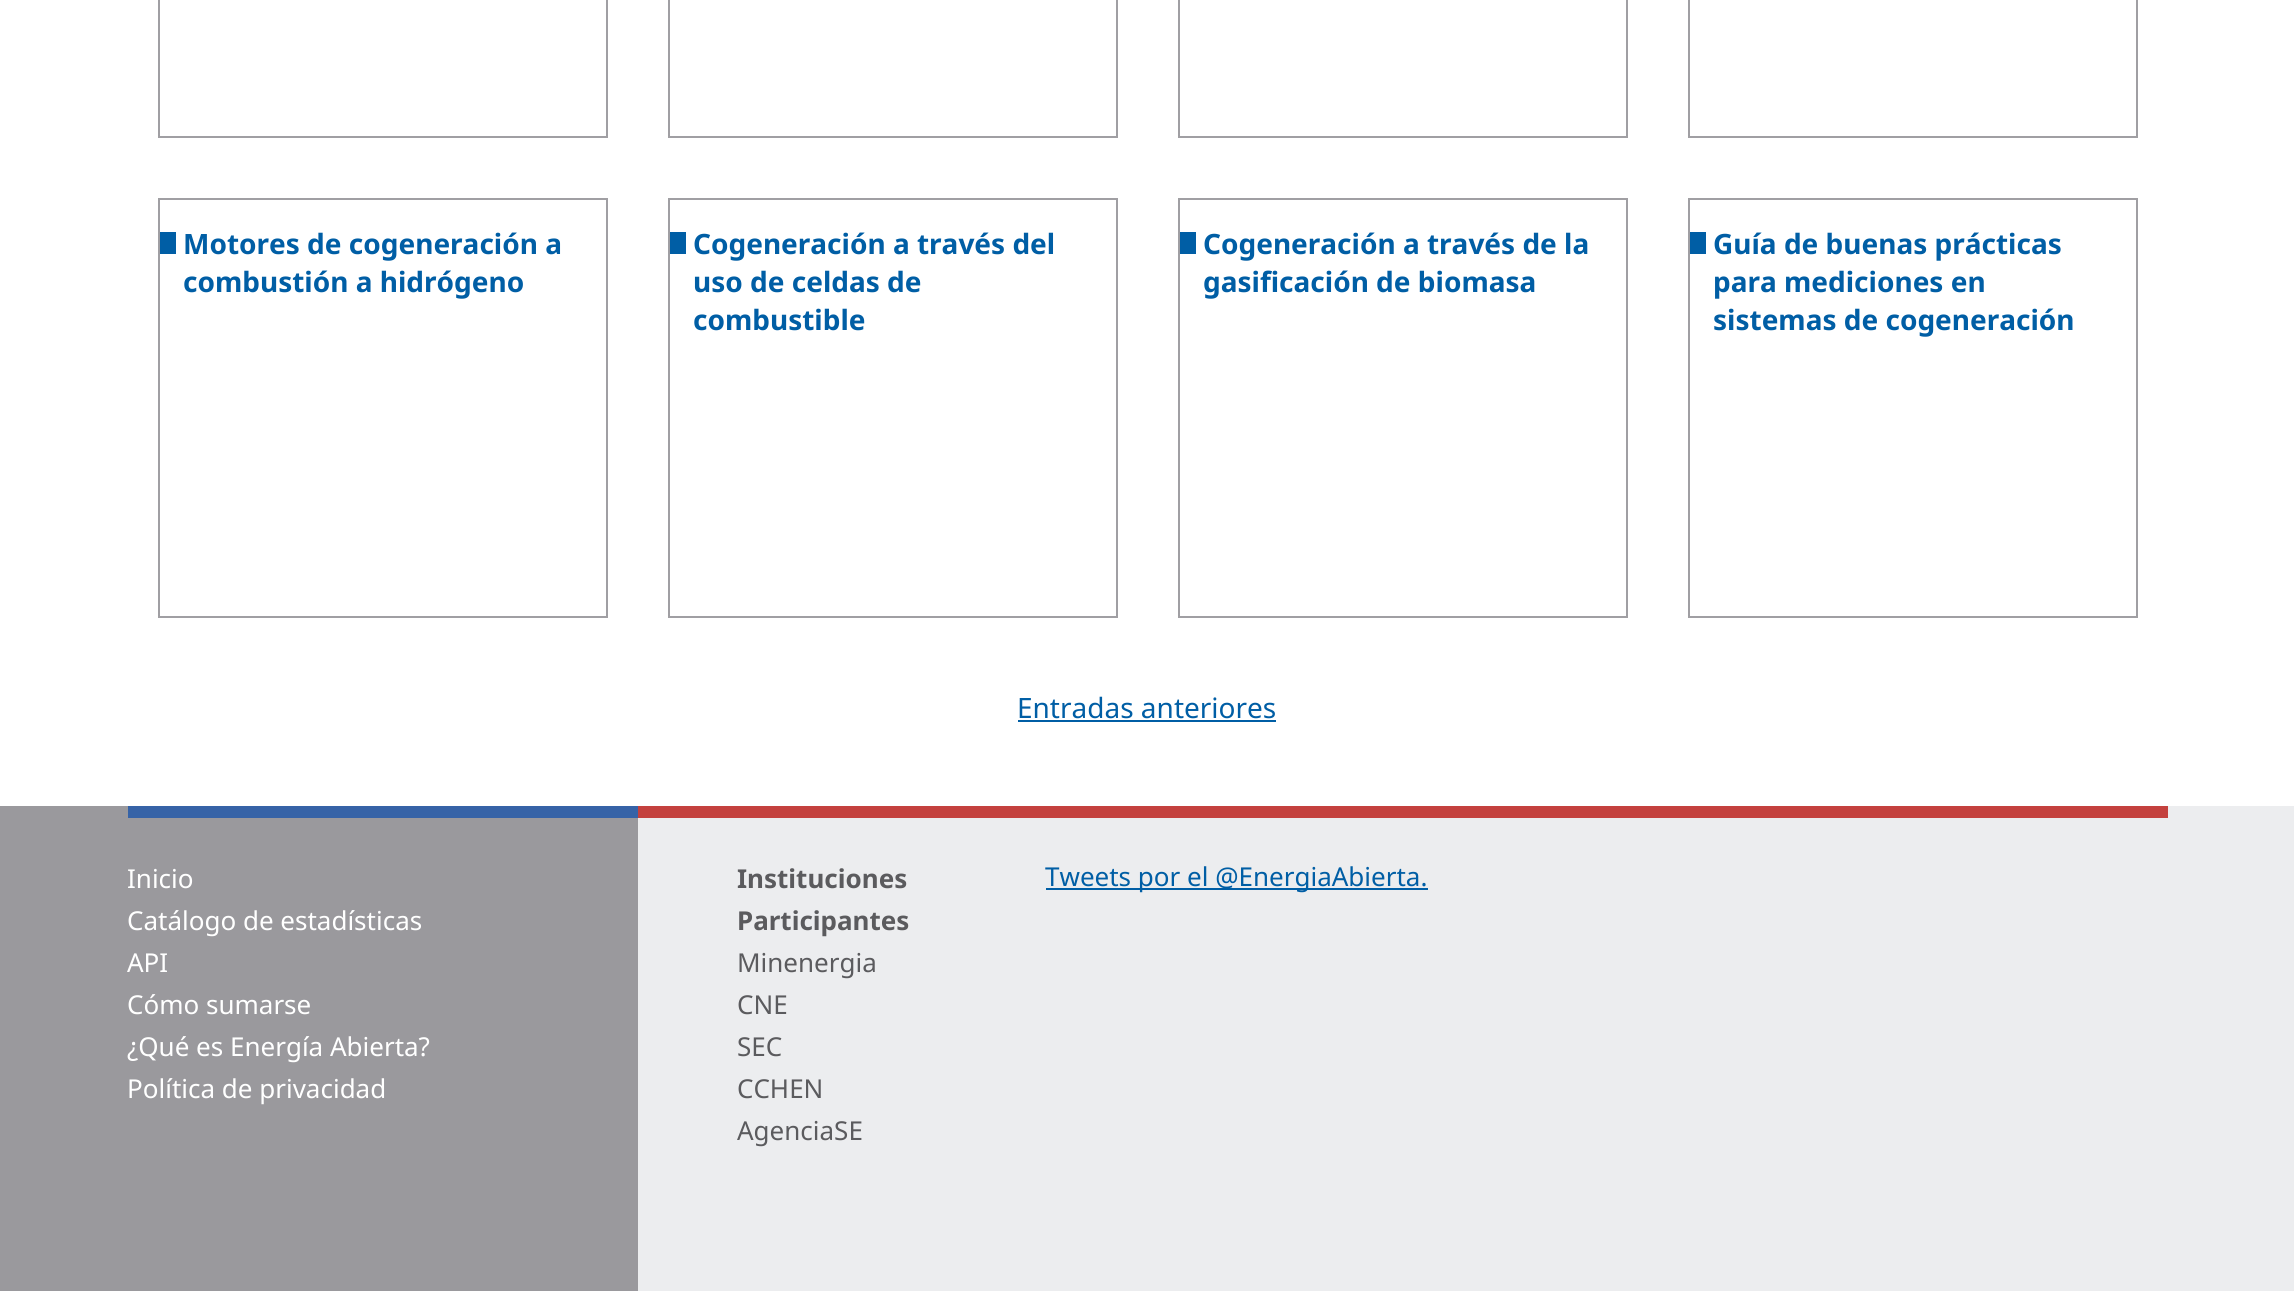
import math
import cairo



def draw(context):
    context.set_source_rgb(1, 1, 1)
    context.paint()
    context.rectangle(159, -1, 448, 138)
    context.set_source_rgb(160 / 255, 159 / 255, 163 / 255)
    context.stroke()
    context.rectangle(669, -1, 448, 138)
    context.stroke()
    context.rectangle(1179, -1, 448, 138)
    context.stroke()
    context.rectangle(1689, -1, 448, 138)
    context.stroke()
    context.rectangle(159, 199, 448, 418)
    context.stroke()
    context.set_source_rgb(0, 94 / 255, 165 / 255)
    context.rectangle(160, 232, 16, 22)
    context.fill()
    context.rectangle(669, 199, 448, 418)
    context.set_source_rgb(160 / 255, 159 / 255, 163 / 255)
    context.stroke()
    context.set_source_rgb(0, 94 / 255, 165 / 255)
    context.rectangle(670, 232, 16, 22)
    context.fill()
    context.rectangle(1179, 199, 448, 418)
    context.set_source_rgb(160 / 255, 159 / 255, 163 / 255)
    context.stroke()
    context.set_source_rgb(0, 94 / 255, 165 / 255)
    context.rectangle(1180, 232, 16, 22)
    context.fill()
    context.rectangle(1689, 199, 448, 418)
    context.set_source_rgb(160 / 255, 159 / 255, 163 / 255)
    context.stroke()
    context.set_source_rgb(0, 94 / 255, 165 / 255)
    context.rectangle(1690, 232, 16, 22)
    context.fill()
    context.rectangle(1018, 720, 258, 2)
    context.fill()
    context.set_source_rgb(154 / 255, 153 / 255, 157 / 255)
    context.rectangle(0, 806, 128, 485)
    context.fill()
    context.set_source_rgb(236 / 255, 237 / 255, 239 / 255)
    context.rectangle(2168, 806, 126, 485)
    context.fill()
    context.rectangle(638, 818, 1530, 473)
    context.fill()
    context.set_source_rgb(154 / 255, 153 / 255, 157 / 255)
    context.rectangle(128, 818, 510, 473)
    context.fill()
    context.set_source_rgb(54 / 255, 99 / 255, 167 / 255)
    context.rectangle(128, 806, 510, 12)
    context.fill()
    context.set_source_rgb(196 / 255, 65 / 255, 62 / 255)
    context.rectangle(638, 806, 1530, 12)
    context.fill()
    context.set_source_rgb(0, 94 / 255, 165 / 255)
    context.rectangle(1046, 888, 382, 2)
    context.fill()
    context.select_font_face("Noto Sans", cairo.FontSlant.NORMAL, cairo.FontWeight.BOLD)
    context.set_font_size(28)
    context.move_to(183, 254)
    context.show_text("Motores de cogeneración a")
    context.move_to(183, 292)
    context.show_text("combustión a hidrógeno")
    context.move_to(693, 254)
    context.show_text("Cogeneración a través del")
    context.move_to(693, 292)
    context.show_text("uso de celdas de")
    context.move_to(693, 330)
    context.show_text("combustible")
    context.move_to(1203, 254)
    context.show_text("Cogeneración a través de la")
    context.move_to(1203, 292)
    context.show_text("gasificación de biomasa")
    context.move_to(1713, 254)
    context.show_text("Guía de buenas prácticas")
    context.move_to(1713, 292)
    context.show_text("para mediciones en")
    context.move_to(1713, 330)
    context.show_text("sistemas de cogeneración")
    context.select_font_face("Noto Sans")
    context.move_to(1017, 718)
    context.show_text("Entradas anteriores")
    context.set_font_size(26)
    context.set_source_rgb(1, 1, 1)
    context.move_to(127, 888)
    context.show_text("Inicio")
    context.move_to(127, 930)
    context.show_text("Catálogo de estadísticas")
    context.move_to(127, 972)
    context.show_text("API")
    context.move_to(127, 1014)
    context.show_text("Cómo sumarse")
    context.move_to(127, 1056)
    context.show_text("¿Qué es Energía Abierta?")
    context.move_to(127, 1098)
    context.show_text("Política de privacidad")
    context.select_font_face("Noto Sans", cairo.FontSlant.NORMAL, cairo.FontWeight.BOLD)
    context.set_source_rgb(91 / 255, 91 / 255, 94 / 255)
    context.move_to(737, 888)
    context.show_text("Instituciones")
    context.move_to(737, 930)
    context.show_text("Participantes")
    context.select_font_face("Noto Sans")
    context.move_to(737, 972)
    context.show_text("Minenergia")
    context.move_to(737, 1014)
    context.show_text("CNE")
    context.move_to(737, 1056)
    context.show_text("SEC")
    context.move_to(737, 1098)
    context.show_text("CCHEN")
    context.move_to(737, 1140)
    context.show_text("AgenciaSE")
    context.set_source_rgb(0, 94 / 255, 165 / 255)
    context.move_to(1045, 886)
    context.show_text("Tweets por el @EnergiaAbierta.")


surface = cairo.ImageSurface(cairo.Format.RGB24, 2294, 1291)
context = cairo.Context(surface)
options = cairo.FontOptions()
options.set_hint_metrics(cairo.HintMetrics.OFF)
options.set_hint_style(cairo.HintStyle.NONE)
context.set_font_options(options)
context.set_miter_limit(4)
draw(context)
surface.write_to_png("out.png")
